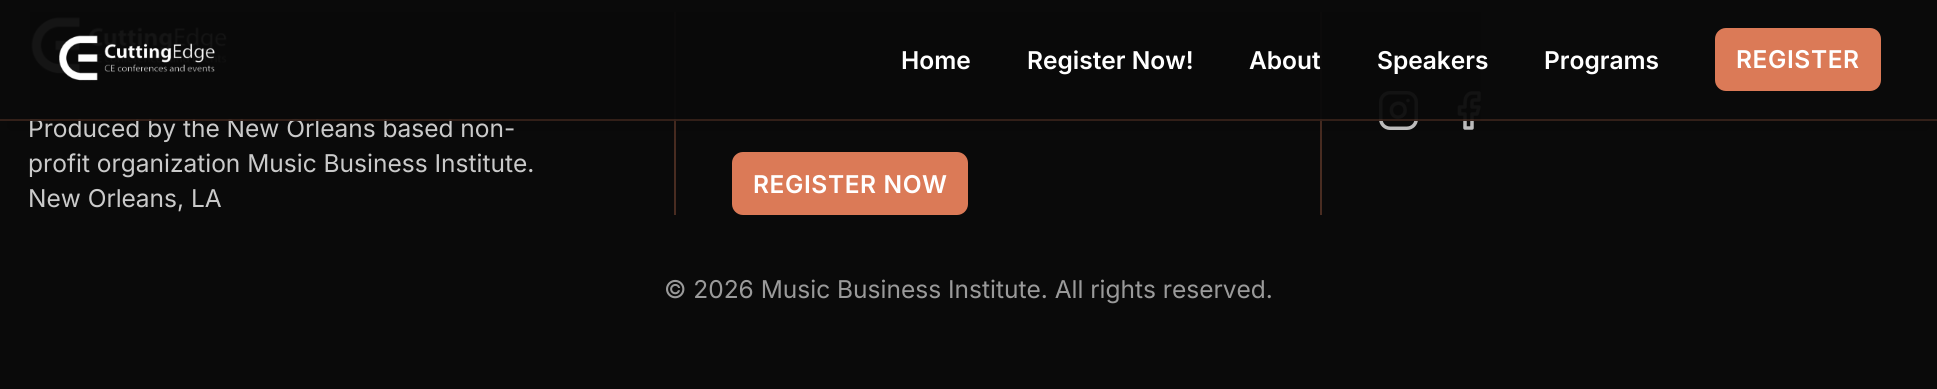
import math
import cairo



def draw_spaced(context, x, y, s, letter, word):
    context.move_to(x, y)
    for ch in s:
        context.show_text(ch)
        context.rel_move_to(letter + word * (ch == ' '), 0)


def rounded_rect(context, x, y, w, h, r):
    context.new_sub_path()
    for i, (u, v) in enumerate([(x + w - r, y + h - r), (x + r, y + h - r), (x + r, y + r), (x + w - r, y + r)]):
        context.arc(u, v, r, i * math.pi / 2, (i + 1) * math.pi / 2)
    context.close_path()


def draw_shadow(context, x, y, w, h, r, blur, alpha):
    context.push_group_with_content(cairo.Content.ALPHA)
    context.set_operator(cairo.Operator.SOURCE)
    for i in range(15, -16, -2):
        e = blur * i / 6
        if min(w, h) + 2 * e > 0:
            context.set_source_rgba(0, 0, 0, alpha * math.erfc((i - 1) / 8.5) / 2)
            rounded_rect(context, x - e, y - e, w + 2 * e, h + 2 * e, max(0, min(r + e + blur * .6, min(w, h) / 2 + e)))
            context.fill()
    context.mask(context.pop_group())


def draw_image(context, path, x, y, w, h):
    context.save()
    context.set_source_surface(cairo.ImageSurface.create_from_png(path), x, y)
    context.rectangle(x, y, w, h)
    context.fill()
    context.restore()


def draw(context):
    context.set_source_rgb(10 / 255, 10 / 255, 10 / 255)
    context.paint()
    draw_image(context, "images/2.png", 31, 17, 196, 57)
    context.set_source_rgb(73 / 255, 44 / 255, 33 / 255)
    context.rectangle(674, 12, 2, 203)
    context.fill()
    context.set_source_rgb(219 / 255, 122 / 255, 87 / 255)
    rounded_rect(context, 732, 152, 236, 63, 11)
    context.fill()
    context.set_source_rgb(73 / 255, 44 / 255, 33 / 255)
    context.rectangle(1320, 12, 2, 203)
    context.fill()
    rounded_rect(context, 1380.75, 92.75, 35.5, 35.5, 9.25)
    context.set_source_rgb(202 / 255, 202 / 255, 202 / 255)
    context.set_line_width(3.5)
    context.stroke()
    context.new_path()
    context.move_to(1405, 109)
    context.curve_to(1406.5, 118, 1393, 120.5, 1391.5, 111.5)
    context.curve_to(1390, 102, 1404, 100, 1405, 109)
    context.close_path()
    context.move_to(1408, 100.5)
    context.line_to(1408, 100.5)
    context.set_line_cap(cairo.LineCap.ROUND)
    context.set_line_join(cairo.LineJoin.ROUND)
    context.stroke()
    context.new_path()
    context.move_to(1479, 93)
    context.line_to(1471.5, 93)
    context.curve_to(1464.5, 94.5, 1465, 101, 1465, 107)
    context.line_to(1459.5, 107)
    context.line_to(1459.5, 114)
    context.line_to(1465, 114)
    context.line_to(1465, 128)
    context.line_to(1472, 128)
    context.line_to(1472, 114)
    context.line_to(1477, 114)
    context.line_to(1479, 107)
    context.line_to(1472, 107)
    context.curve_to(1472, 99, 1471, 100, 1479, 100)
    context.close_path()
    context.stroke()
    context.save()
    context.set_fill_rule(cairo.FillRule.EVEN_ODD)
    context.new_path()
    context.move_to(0, 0)
    context.line_to(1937, 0)
    context.line_to(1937, 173)
    context.line_to(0, 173)
    context.close_path()
    context.move_to(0, 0)
    context.line_to(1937, 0)
    context.line_to(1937, 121)
    context.line_to(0, 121)
    context.close_path()
    context.clip()
    context.set_source_rgb(0, 0, 0)
    draw_shadow(context, 5, 23, 1927, 110, 0, 13, 0.1)
    context.restore()
    context.set_source_rgb(219 / 255, 122 / 255, 87 / 255)
    rounded_rect(context, 1715, 28, 166, 63, 11)
    context.fill()
    context.select_font_face("Inter SemiBold")
    context.set_font_size(24.5)
    context.set_source_rgb(1, 1, 1)
    context.move_to(1544, 69)
    context.show_text("Programs")
    draw_spaced(context, 1736, 68, "REGISTER", 0.6, 0)
    context.select_font_face("Inter")
    context.set_source_rgb(202 / 255, 202 / 255, 202 / 255)
    context.move_to(28, 137)
    context.show_text("Produced by the New Orleans based non-")
    context.set_source_rgba(10 / 255, 10 / 255, 10 / 255, 0.95)
    context.rectangle(30, 12, 1451, 109)
    context.fill()
    context.select_font_face("Inter SemiBold")
    context.set_source_rgb(1, 1, 1)
    context.move_to(1377, 69)
    context.show_text("Speakers")
    context.move_to(1249, 69)
    context.show_text("About")
    context.move_to(1027, 69)
    context.show_text("Register Now!")
    context.move_to(901, 69)
    context.show_text("Home")
    draw_image(context, "images/1.png", 59, 35, 156, 46)
    context.set_source_rgba(219 / 255, 122 / 255, 87 / 255, 0.2)
    context.rectangle(0, 119, 1937, 2)
    context.fill()
    context.select_font_face("Inter")
    context.set_source_rgb(202 / 255, 202 / 255, 202 / 255)
    context.move_to(28, 172)
    context.show_text("profit organization Music Business Institute.")
    context.move_to(28, 207)
    context.show_text("New Orleans, LA")
    context.select_font_face("Inter SemiBold")
    context.set_source_rgb(1, 1, 1)
    draw_spaced(context, 753, 193, "REGISTER NOW", 0.6, 0)
    context.select_font_face("Inter")
    context.set_source_rgb(154 / 255, 154 / 255, 154 / 255)
    context.move_to(664, 298)
    context.show_text("© 2026 Music Business Institute. All rights reserved.")


surface = cairo.ImageSurface(cairo.Format.RGB24, 1937, 389)
context = cairo.Context(surface)
options = cairo.FontOptions()
options.set_hint_metrics(cairo.HintMetrics.OFF)
options.set_hint_style(cairo.HintStyle.NONE)
context.set_font_options(options)
context.set_miter_limit(4)
draw(context)
surface.write_to_png("out.png")
